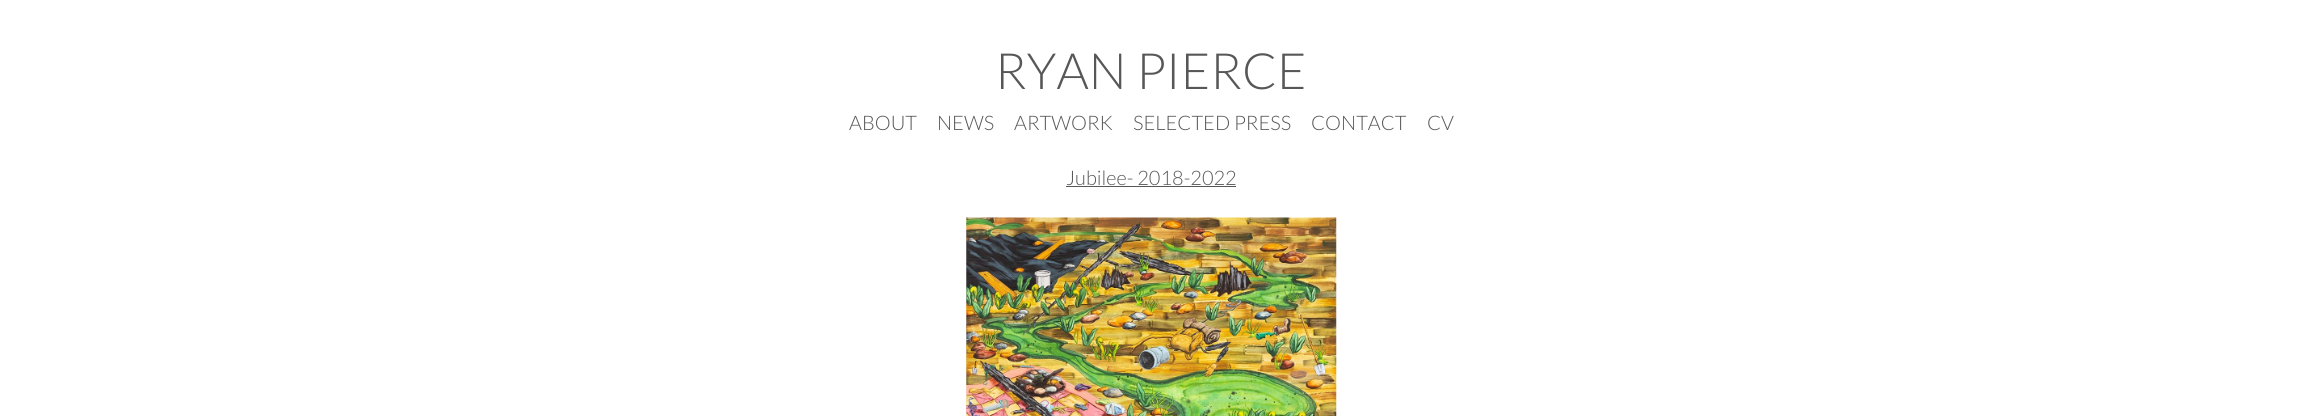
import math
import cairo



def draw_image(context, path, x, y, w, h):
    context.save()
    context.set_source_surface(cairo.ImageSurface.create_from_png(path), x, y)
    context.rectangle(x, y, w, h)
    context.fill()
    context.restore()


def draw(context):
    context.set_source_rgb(1, 1, 1)
    context.paint()
    context.set_source_rgb(87 / 255, 87 / 255, 87 / 255)
    context.rectangle(1066, 186, 170, 1)
    context.fill()
    draw_image(context, "images/1.png", 966, 217, 371, 199)
    context.select_font_face("Lato Light")
    context.set_font_size(50)
    context.move_to(995, 89)
    context.show_text("RYAN PIERCE")
    context.set_font_size(20)
    context.move_to(849, 130)
    context.show_text("ABOUT")
    context.move_to(937, 130)
    context.show_text("NEWS")
    context.move_to(1014, 130)
    context.show_text("ARTWORK")
    context.move_to(1133, 130)
    context.show_text("SELECTED PRESS")
    context.move_to(1311, 130)
    context.show_text("CONTACT")
    context.move_to(1427, 130)
    context.show_text("CV")
    context.move_to(1066, 185)
    context.show_text("Jubilee- 2018-2022")


surface = cairo.ImageSurface(cairo.Format.RGB24, 2302, 416)
context = cairo.Context(surface)
options = cairo.FontOptions()
options.set_hint_metrics(cairo.HintMetrics.OFF)
options.set_hint_style(cairo.HintStyle.NONE)
context.set_font_options(options)
context.set_miter_limit(4)
draw(context)
surface.write_to_png("out.png")
